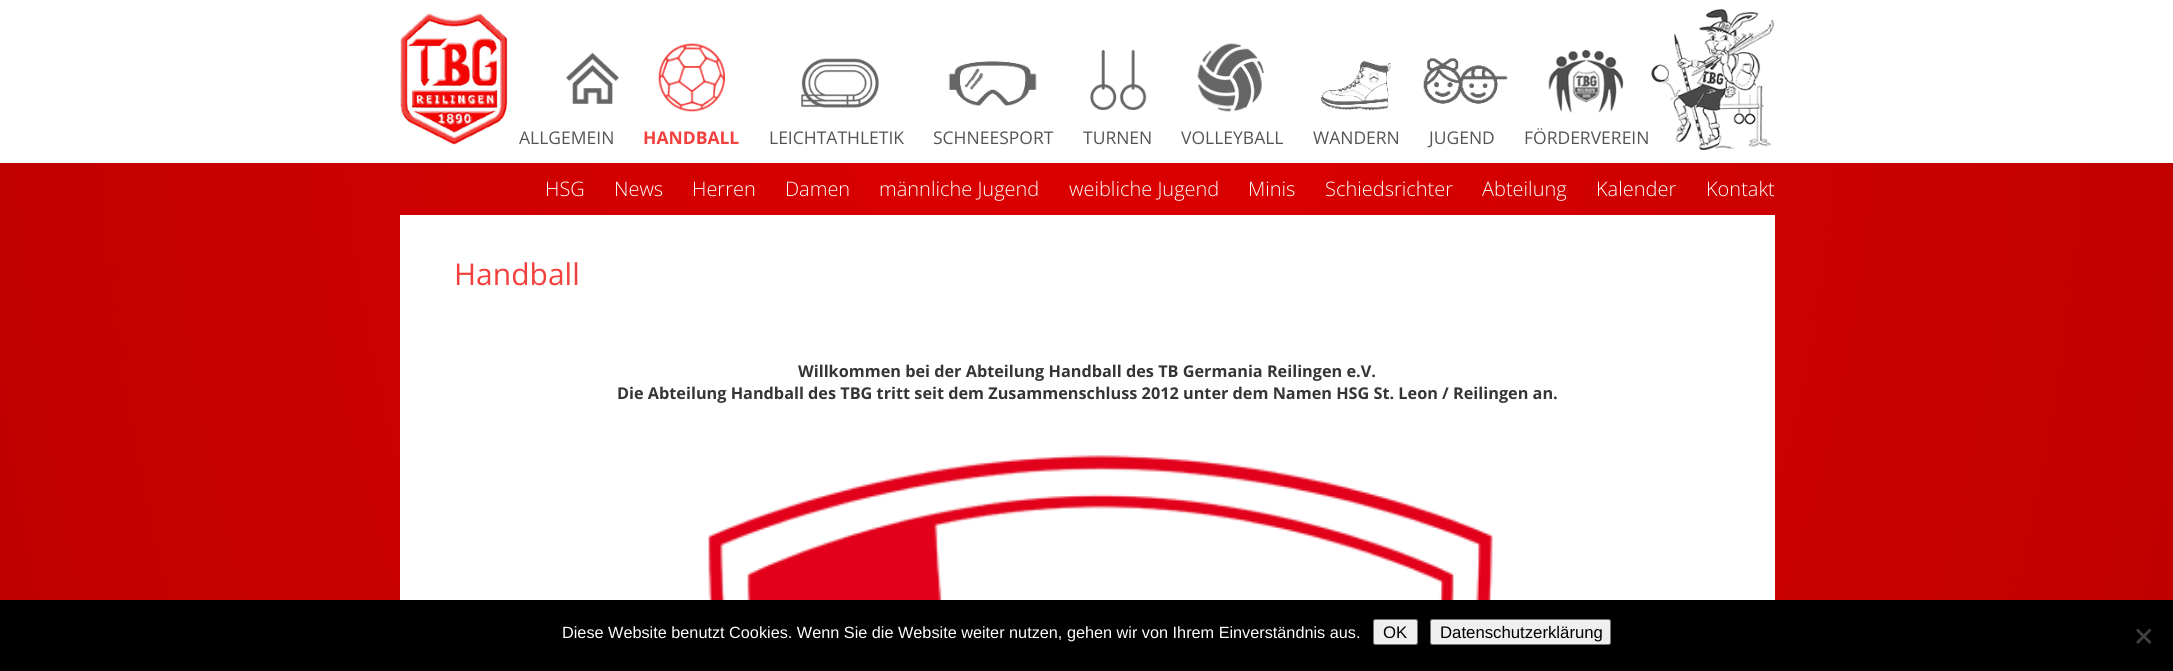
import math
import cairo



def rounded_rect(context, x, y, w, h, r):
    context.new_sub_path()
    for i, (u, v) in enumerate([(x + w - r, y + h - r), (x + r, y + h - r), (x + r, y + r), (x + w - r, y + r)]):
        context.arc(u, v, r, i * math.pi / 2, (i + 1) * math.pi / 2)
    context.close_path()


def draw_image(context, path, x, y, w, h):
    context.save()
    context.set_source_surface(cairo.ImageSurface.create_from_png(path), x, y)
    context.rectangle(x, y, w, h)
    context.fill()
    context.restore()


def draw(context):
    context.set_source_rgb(1, 1, 1)
    context.paint()
    draw_image(context, "images/1.png", 0, 163, 2173, 437)
    draw_image(context, "images/2.png", 400, 13, 108, 132)
    draw_image(context, "images/3.png", 566, 52, 53, 52)
    draw_image(context, "images/4.png", 658, 43, 67, 69)
    draw_image(context, "images/5.png", 801, 58, 78, 50)
    draw_image(context, "images/6.png", 948, 61, 89, 45)
    draw_image(context, "images/7.png", 1090, 50, 57, 60)
    draw_image(context, "images/8.png", 1197, 43, 67, 69)
    draw_image(context, "images/9.png", 1321, 61, 71, 49)
    draw_image(context, "images/10.png", 1423, 58, 85, 46)
    draw_image(context, "images/11.png", 1548, 50, 76, 63)
    draw_image(context, "images/12.png", 1651, 9, 124, 141)
    context.set_source_rgb(1, 1, 1)
    context.rectangle(400, 215, 1375, 385)
    context.fill()
    draw_image(context, "images/13.png", 708, 455, 785, 145)
    context.set_source_rgb(0, 0, 0)
    context.rectangle(0, 600, 2173, 71)
    context.fill()
    context.set_source_rgb(239 / 255, 239 / 255, 239 / 255)
    rounded_rect(context, 1373.5, 619.5, 44, 25, 2)
    context.fill_preserve()
    context.set_source_rgb(118 / 255, 118 / 255, 118 / 255)
    context.set_line_width(1)
    context.stroke()
    context.set_source_rgb(239 / 255, 239 / 255, 239 / 255)
    rounded_rect(context, 1430.5, 619.5, 180, 25, 2)
    context.fill_preserve()
    context.set_source_rgb(118 / 255, 118 / 255, 118 / 255)
    context.stroke()
    context.set_source_rgb(64 / 255, 64 / 255, 64 / 255)
    context.new_path()
    context.move_to(2149.5, 628.5)
    context.line_to(2151.5, 630.5)
    context.line_to(2138, 644)
    context.line_to(2136, 642)
    context.close_path()
    context.fill()
    context.new_path()
    context.move_to(2136, 630.5)
    context.line_to(2138, 628.5)
    context.line_to(2151.5, 642)
    context.line_to(2149.5, 644)
    context.close_path()
    context.fill()
    context.select_font_face("Open Sans")
    context.set_font_size(17.5)
    context.set_source_rgb(84 / 255, 84 / 255, 84 / 255)
    context.move_to(519, 144)
    context.show_text("ALLGEMEIN")
    context.select_font_face("Open Sans", cairo.FontSlant.NORMAL, cairo.FontWeight.BOLD)
    context.set_source_rgb(241 / 255, 64 / 255, 61 / 255)
    context.move_to(643, 144)
    context.show_text("HANDBALL")
    context.select_font_face("Open Sans")
    context.set_source_rgb(84 / 255, 84 / 255, 84 / 255)
    context.move_to(769, 144)
    context.show_text("LEICHTATHLETIK")
    context.move_to(933, 144)
    context.show_text("SCHNEESPORT")
    context.move_to(1083, 144)
    context.show_text("TURNEN")
    context.move_to(1181, 144)
    context.show_text("VOLLEYBALL")
    context.move_to(1313, 144)
    context.show_text("WANDERN")
    context.move_to(1429, 144)
    context.show_text("JUGEND")
    context.move_to(1524, 144)
    context.show_text("FÖRDERVEREIN")
    context.select_font_face("Open Sans Light")
    context.set_font_size(20)
    context.set_source_rgb(1, 1, 1)
    context.move_to(545, 196)
    context.show_text("HSG")
    context.move_to(614, 196)
    context.show_text("News")
    context.move_to(692, 196)
    context.show_text("Herren")
    context.move_to(785, 196)
    context.show_text("Damen")
    context.move_to(879, 196)
    context.show_text("männliche Jugend")
    context.move_to(1069, 196)
    context.show_text("weibliche Jugend")
    context.move_to(1248, 196)
    context.show_text("Minis")
    context.move_to(1325, 196)
    context.show_text("Schiedsrichter")
    context.move_to(1482, 196)
    context.show_text("Abteilung")
    context.move_to(1596, 196)
    context.show_text("Kalender")
    context.move_to(1706, 196)
    context.show_text("Kontakt")
    context.select_font_face("Open Sans")
    context.set_font_size(30)
    context.set_source_rgb(241 / 255, 64 / 255, 61 / 255)
    context.move_to(454, 285)
    context.show_text("Handball")
    context.select_font_face("Open Sans", cairo.FontSlant.NORMAL, cairo.FontWeight.BOLD)
    context.set_font_size(16.25)
    context.set_source_rgb(53 / 255, 53 / 255, 53 / 255)
    context.move_to(798, 377)
    context.show_text("Willkommen bei der Abteilung Handball des TB Germania Reilingen e.V.")
    context.move_to(617, 399)
    context.show_text("Die Abteilung Handball des TBG tritt seit dem Zusammenschluss 2012 unter dem Namen HSG St. Leon / Reilingen an.")
    context.select_font_face("Liberation Sans")
    context.set_source_rgb(1, 1, 1)
    context.move_to(562, 638)
    context.show_text("Diese Website benutzt Cookies. Wenn Sie die Website weiter nutzen, gehen wir von Ihrem Einverständnis aus.")
    context.set_font_size(16.75)
    context.set_source_rgb(0, 0, 0)
    context.move_to(1383, 638)
    context.show_text("OK")
    context.move_to(1440, 638)
    context.show_text("Datenschutzerklärung")


surface = cairo.ImageSurface(cairo.Format.RGB24, 2173, 671)
context = cairo.Context(surface)
options = cairo.FontOptions()
options.set_hint_metrics(cairo.HintMetrics.OFF)
options.set_hint_style(cairo.HintStyle.NONE)
context.set_font_options(options)
context.set_miter_limit(4)
draw(context)
surface.write_to_png("out.png")
